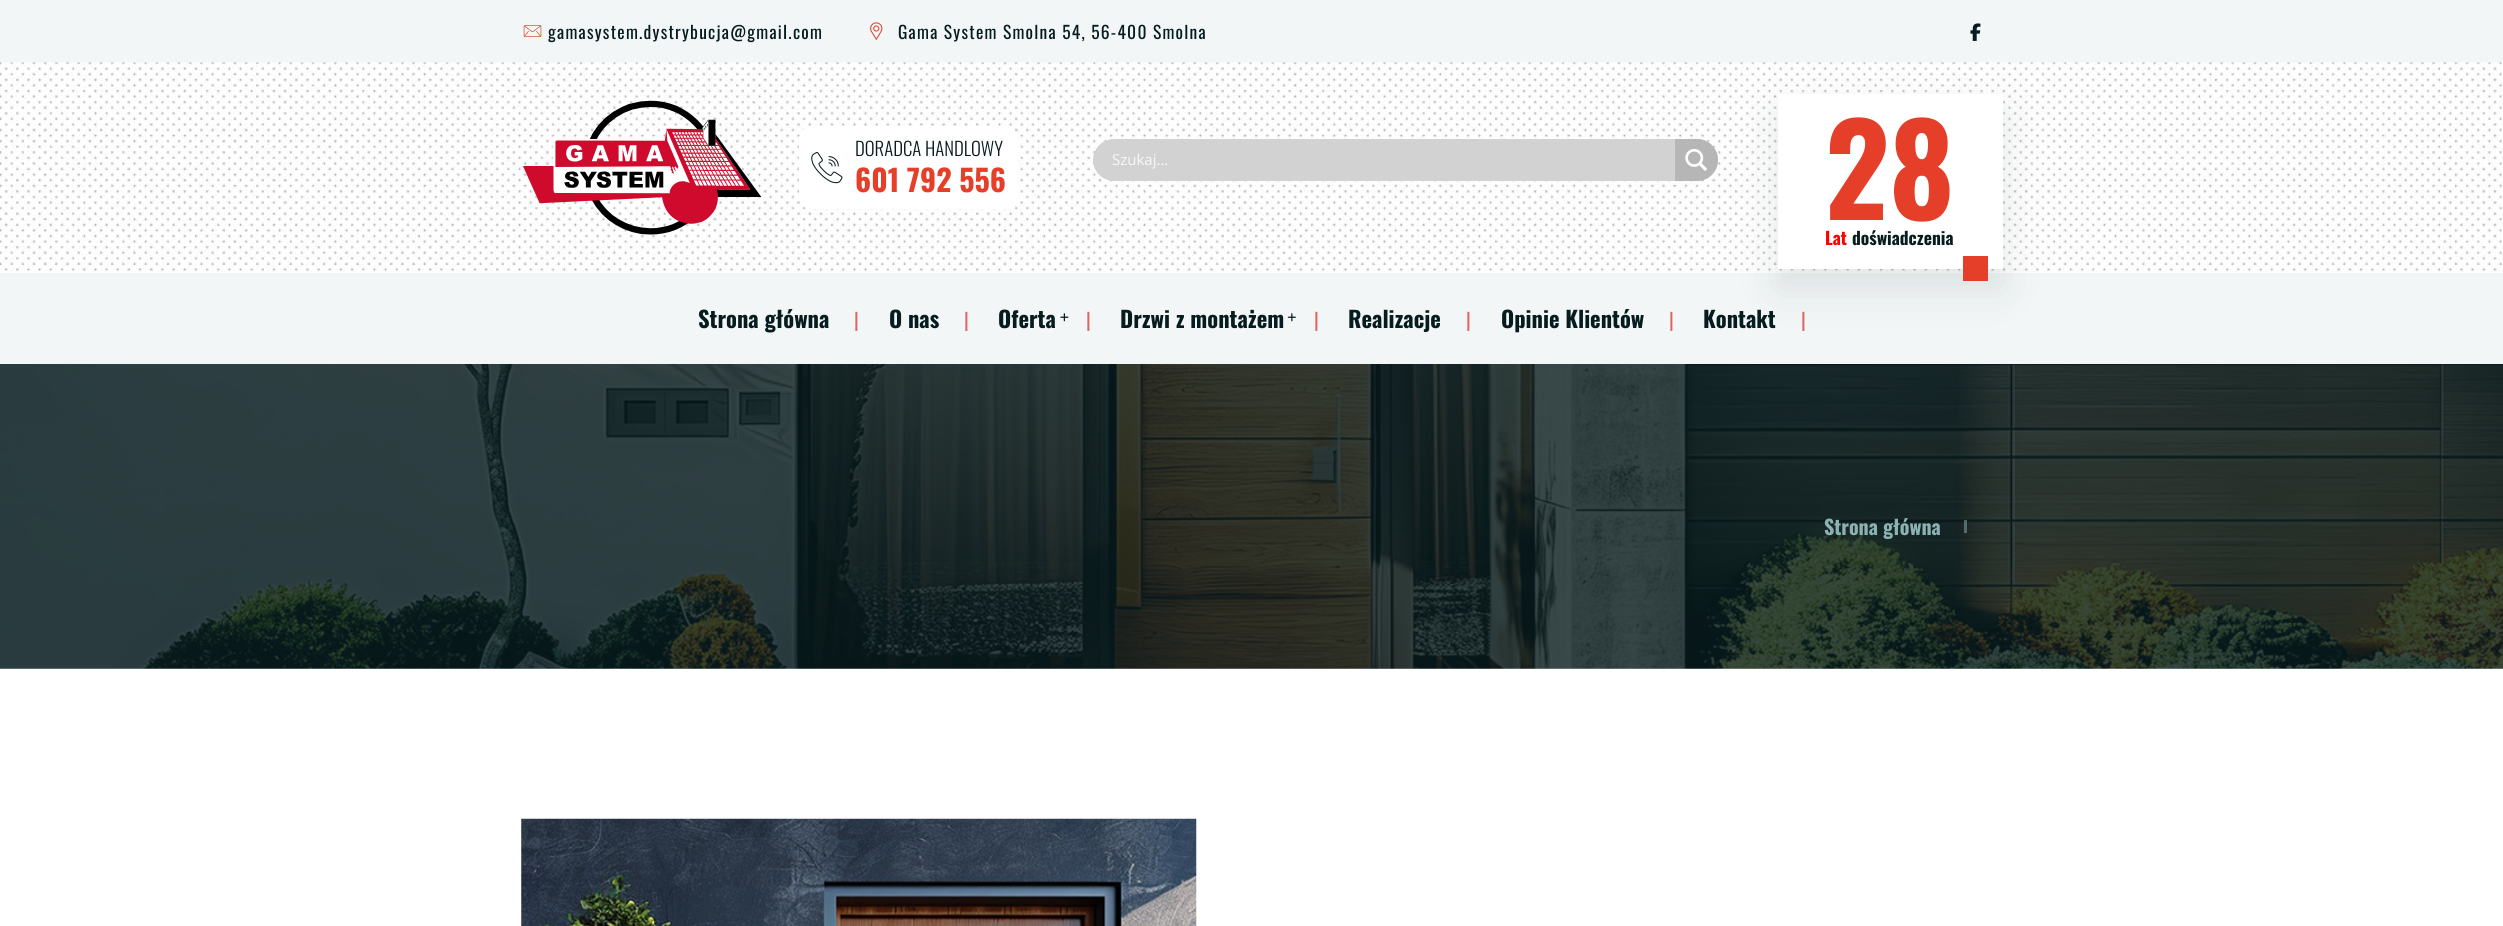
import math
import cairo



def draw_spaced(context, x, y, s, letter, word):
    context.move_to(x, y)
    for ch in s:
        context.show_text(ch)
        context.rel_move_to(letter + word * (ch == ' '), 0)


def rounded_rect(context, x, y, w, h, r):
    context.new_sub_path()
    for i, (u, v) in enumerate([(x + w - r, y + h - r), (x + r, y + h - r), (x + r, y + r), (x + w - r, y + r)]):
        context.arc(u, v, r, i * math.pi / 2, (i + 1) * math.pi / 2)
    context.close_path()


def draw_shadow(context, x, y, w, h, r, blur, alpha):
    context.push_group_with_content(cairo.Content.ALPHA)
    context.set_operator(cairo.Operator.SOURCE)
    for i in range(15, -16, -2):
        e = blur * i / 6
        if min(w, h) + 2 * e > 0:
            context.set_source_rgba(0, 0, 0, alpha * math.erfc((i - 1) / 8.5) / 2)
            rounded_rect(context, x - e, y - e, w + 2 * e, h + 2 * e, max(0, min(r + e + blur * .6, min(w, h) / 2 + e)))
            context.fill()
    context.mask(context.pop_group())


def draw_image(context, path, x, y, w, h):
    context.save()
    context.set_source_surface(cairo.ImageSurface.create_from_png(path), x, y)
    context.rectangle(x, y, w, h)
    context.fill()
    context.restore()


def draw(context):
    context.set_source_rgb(1, 1, 1)
    context.paint()
    context.set_source_rgb(242 / 255, 246 / 255, 247 / 255)
    context.rectangle(0, 0, 2503, 63)
    context.fill()
    draw_image(context, "images/1.png", 523, 25, 19, 12)
    draw_image(context, "images/2.png", 870, 22, 13, 18)
    draw_image(context, "images/3.png", 1970, 23, 11, 18)
    draw_image(context, "images/4.png", 0, 62, 2503, 210)
    draw_image(context, "images/5.png", 523, 100, 238, 135)
    context.set_source_rgb(1, 1, 1)
    rounded_rect(context, 799, 126, 219, 83, 13)
    context.fill()
    draw_image(context, "images/6.png", 811, 152, 32, 32)
    context.set_source_rgb(242 / 255, 246 / 255, 247 / 255)
    context.rectangle(0, 273, 2503, 91)
    context.fill()
    context.set_source_rgb(7 / 255, 28 / 255, 31 / 255)
    draw_shadow(context, 1778, 114, 225, 175, 0, 20, 0.1)
    context.set_source_rgb(210 / 255, 210 / 255, 210 / 255)
    rounded_rect(context, 1093, 139, 625, 42, 21)
    context.fill()
    context.set_source_rgb(182 / 255, 182 / 255, 182 / 255)
    context.new_path()
    context.move_to(1675, 139)
    context.line_to(1697, 139)
    context.curve_to(1708.5, 139, 1718, 148.5, 1718, 160)
    context.curve_to(1718, 171.5, 1708.5, 181, 1697, 181)
    context.line_to(1675, 181)
    context.close_path()
    context.fill()
    draw_image(context, "images/7.png", 1685, 149, 22, 22)
    context.set_source_rgb(1, 1, 1)
    context.rectangle(1778, 94, 225, 175)
    context.fill()
    context.set_source_rgb(229 / 255, 62 / 255, 41 / 255)
    context.rectangle(1963, 256, 25, 25)
    context.fill()
    draw_image(context, "images/8.png", 1060, 313, 9, 9)
    draw_image(context, "images/9.png", 1287, 313, 9, 9)
    draw_image(context, "images/10.png", 0, 364, 2503, 305)
    context.set_source_rgba(140 / 255, 178 / 255, 178 / 255, 0.5)
    context.rectangle(1964, 520, 3, 13)
    context.fill()
    draw_image(context, "images/11.png", 521, 818, 676, 108)
    context.select_font_face("Oswald")
    context.set_font_size(17.5)
    context.set_source_rgb(7 / 255, 28 / 255, 31 / 255)
    draw_spaced(context, 548, 39, "gamasystem.dystrybucja@gmail.com", 1.25, 0)
    draw_spaced(context, 898, 39, "Gama System Smolna 54, 56-400 Smolna", 1.25, 0)
    context.select_font_face("Oswald Light")
    context.set_font_size(18.75)
    context.move_to(855, 156)
    context.show_text("DORADCA HANDLOWY")
    context.select_font_face("Oswald", cairo.FontSlant.NORMAL, cairo.FontWeight.BOLD)
    context.set_font_size(30)
    context.set_source_rgb(229 / 255, 62 / 255, 41 / 255)
    context.move_to(855, 192)
    context.show_text("601 792 556")
    context.select_font_face("Open Sans")
    context.set_font_size(15)
    context.set_source_rgb(248 / 255, 248 / 255, 248 / 255)
    context.move_to(1112, 165)
    context.show_text("Szukaj...")
    context.select_font_face("Oswald", cairo.FontSlant.NORMAL, cairo.FontWeight.BOLD)
    context.set_font_size(125)
    context.set_source_rgb(229 / 255, 62 / 255, 41 / 255)
    context.move_to(1825, 220)
    context.show_text("28")
    context.set_font_size(17.5)
    context.set_source_rgb(1, 0, 0)
    context.move_to(1825, 245)
    context.show_text("Lat")
    context.set_source_rgb(7 / 255, 28 / 255, 31 / 255)
    context.move_to(1852, 245)
    context.show_text("doświadczenia")
    context.set_font_size(22.5)
    context.move_to(698, 328)
    context.show_text("Strona główna")
    context.select_font_face("Oswald")
    context.set_font_size(20)
    context.set_source_rgb(224 / 255, 98 / 255, 92 / 255)
    context.move_to(854, 328)
    context.show_text("|")
    context.select_font_face("Oswald", cairo.FontSlant.NORMAL, cairo.FontWeight.BOLD)
    context.set_font_size(22.5)
    context.set_source_rgb(7 / 255, 28 / 255, 31 / 255)
    context.move_to(889, 328)
    context.show_text("O nas")
    context.select_font_face("Oswald")
    context.set_font_size(20)
    context.set_source_rgb(224 / 255, 98 / 255, 92 / 255)
    context.move_to(964, 328)
    context.show_text("|")
    context.select_font_face("Oswald", cairo.FontSlant.NORMAL, cairo.FontWeight.BOLD)
    context.set_font_size(22.5)
    context.set_source_rgb(7 / 255, 28 / 255, 31 / 255)
    context.move_to(998, 328)
    context.show_text("Oferta")
    context.select_font_face("Oswald")
    context.set_font_size(20)
    context.set_source_rgb(224 / 255, 98 / 255, 92 / 255)
    context.move_to(1086, 328)
    context.show_text("|")
    context.select_font_face("Oswald", cairo.FontSlant.NORMAL, cairo.FontWeight.BOLD)
    context.set_font_size(22.5)
    context.set_source_rgb(7 / 255, 28 / 255, 31 / 255)
    context.move_to(1120, 328)
    context.show_text("Drzwi z montażem")
    context.select_font_face("Oswald")
    context.set_font_size(20)
    context.set_source_rgb(224 / 255, 98 / 255, 92 / 255)
    context.move_to(1314, 328)
    context.show_text("|")
    context.select_font_face("Oswald", cairo.FontSlant.NORMAL, cairo.FontWeight.BOLD)
    context.set_font_size(22.5)
    context.set_source_rgb(7 / 255, 28 / 255, 31 / 255)
    context.move_to(1348, 328)
    context.show_text("Realizacje")
    context.select_font_face("Oswald")
    context.set_font_size(20)
    context.set_source_rgb(224 / 255, 98 / 255, 92 / 255)
    context.move_to(1466, 328)
    context.show_text("|")
    context.select_font_face("Oswald", cairo.FontSlant.NORMAL, cairo.FontWeight.BOLD)
    context.set_font_size(22.5)
    context.set_source_rgb(7 / 255, 28 / 255, 31 / 255)
    context.move_to(1501, 328)
    context.show_text("Opinie Klientów")
    context.select_font_face("Oswald")
    context.set_font_size(20)
    context.set_source_rgb(224 / 255, 98 / 255, 92 / 255)
    context.move_to(1669, 328)
    context.show_text("|")
    context.select_font_face("Oswald", cairo.FontSlant.NORMAL, cairo.FontWeight.BOLD)
    context.set_font_size(22.5)
    context.set_source_rgb(7 / 255, 28 / 255, 31 / 255)
    context.move_to(1703, 328)
    context.show_text("Kontakt")
    context.select_font_face("Oswald")
    context.set_font_size(20)
    context.set_source_rgb(224 / 255, 98 / 255, 92 / 255)
    context.move_to(1801, 328)
    context.show_text("|")
    context.select_font_face("Oswald", cairo.FontSlant.NORMAL, cairo.FontWeight.BOLD)
    context.set_source_rgb(140 / 255, 178 / 255, 178 / 255)
    context.move_to(1824, 535)
    context.show_text("Strona główna")


surface = cairo.ImageSurface(cairo.Format.RGB24, 2503, 926)
context = cairo.Context(surface)
options = cairo.FontOptions()
options.set_hint_metrics(cairo.HintMetrics.OFF)
options.set_hint_style(cairo.HintStyle.NONE)
context.set_font_options(options)
context.set_miter_limit(4)
draw(context)
surface.write_to_png("out.png")
